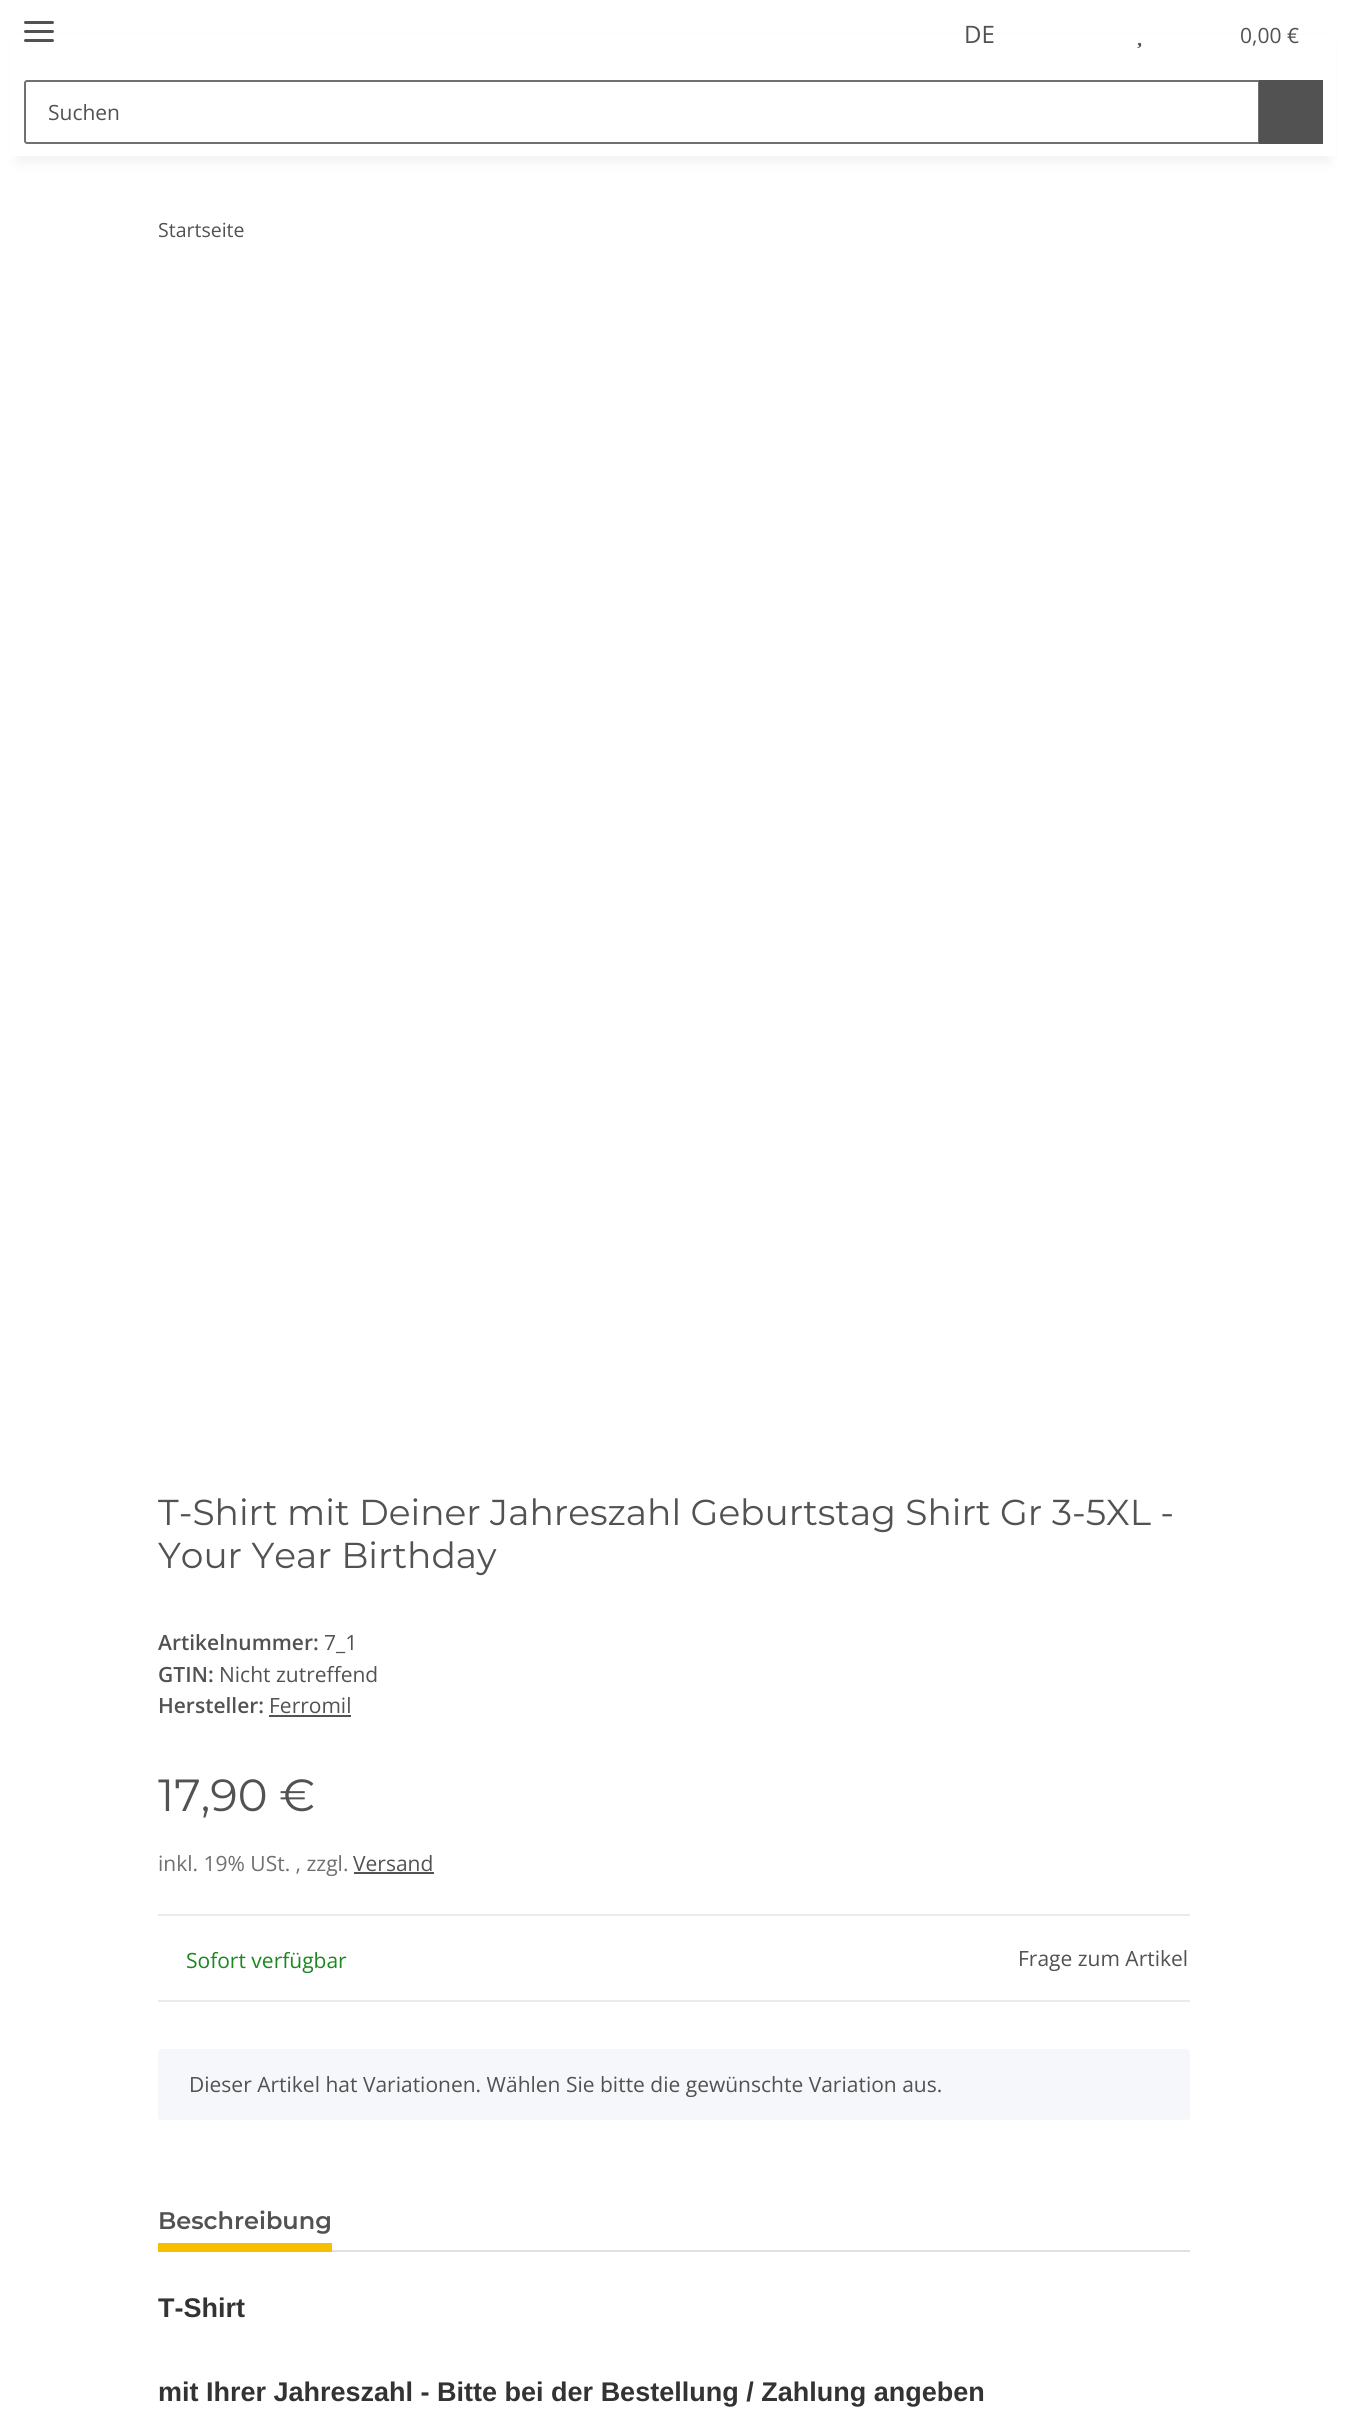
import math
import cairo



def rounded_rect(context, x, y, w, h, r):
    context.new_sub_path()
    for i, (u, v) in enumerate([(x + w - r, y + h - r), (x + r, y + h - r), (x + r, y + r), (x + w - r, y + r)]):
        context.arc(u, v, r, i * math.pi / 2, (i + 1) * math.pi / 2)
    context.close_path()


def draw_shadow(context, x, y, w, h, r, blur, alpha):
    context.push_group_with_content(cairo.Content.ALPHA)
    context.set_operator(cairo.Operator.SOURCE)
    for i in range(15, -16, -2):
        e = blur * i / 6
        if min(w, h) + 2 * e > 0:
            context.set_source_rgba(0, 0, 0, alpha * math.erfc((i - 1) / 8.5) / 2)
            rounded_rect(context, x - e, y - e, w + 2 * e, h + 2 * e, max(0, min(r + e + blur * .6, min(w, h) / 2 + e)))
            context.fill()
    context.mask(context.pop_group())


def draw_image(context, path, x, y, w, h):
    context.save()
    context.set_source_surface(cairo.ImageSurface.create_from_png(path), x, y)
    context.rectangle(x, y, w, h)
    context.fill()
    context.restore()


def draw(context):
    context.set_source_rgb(1, 1, 1)
    context.paint()
    context.set_source_rgb(0, 0, 0)
    draw_shadow(context, 18, 42, 1311, 120, 0, 7, 0.06)
    context.set_source_rgb(1, 1, 1)
    context.rectangle(11, 35, 1325, 121)
    context.fill()
    context.set_source_rgb(82 / 255, 82 / 255, 82 / 255)
    rounded_rect(context, 24, 30, 30, 3, 1.5)
    context.fill()
    rounded_rect(context, 24, 21, 30, 3, 1.5)
    context.fill()
    rounded_rect(context, 24, 39, 30, 3, 1.5)
    context.fill()
    draw_image(context, "images/1.png", 1137, 42, 5, 7)
    context.new_path()
    context.move_to(27, 81)
    context.line_to(1259, 81)
    context.line_to(1259, 143)
    context.line_to(27, 143)
    context.curve_to(26, 143, 25, 142, 25, 141)
    context.line_to(25, 83)
    context.curve_to(25, 82, 26, 81, 27, 81)
    context.close_path()
    context.set_source_rgb(112 / 255, 112 / 255, 112 / 255)
    context.stroke()
    context.set_source_rgb(82 / 255, 82 / 255, 82 / 255)
    context.rectangle(1259, 80, 64, 64)
    context.fill()
    context.rectangle(269, 1715, 82, 2)
    context.fill()
    context.rectangle(354, 1872, 80, 2)
    context.fill()
    context.set_source_rgb(235 / 255, 235 / 255, 235 / 255)
    context.rectangle(158, 1914, 1032, 2)
    context.fill()
    context.rectangle(158, 2000, 1032, 2)
    context.fill()
    context.set_source_rgb(245 / 255, 247 / 255, 250 / 255)
    rounded_rect(context, 158, 2049, 1032, 71, 3)
    context.fill()
    context.set_source_rgb(222 / 255, 226 / 255, 230 / 255)
    context.rectangle(332, 2250, 858, 2)
    context.fill()
    context.set_source_rgb(248 / 255, 191 / 255, 0)
    context.rectangle(158, 2243, 174, 9)
    context.fill()
    context.select_font_face("Open Sans")
    context.set_font_size(24)
    context.set_source_rgb(82 / 255, 82 / 255, 82 / 255)
    context.move_to(964, 43)
    context.show_text("DE")
    context.set_font_size(21)
    context.move_to(1240, 43)
    context.show_text("0,00 €")
    context.move_to(48, 120)
    context.show_text("Suchen")
    context.set_font_size(19.5)
    context.move_to(158, 237)
    context.show_text("Startseite")
    context.select_font_face("Montserrat")
    context.set_font_size(36)
    context.move_to(158, 1525)
    context.show_text("T-Shirt mit Deiner Jahreszahl Geburtstag Shirt Gr 3-5XL -")
    context.move_to(158, 1568)
    context.show_text("Your Year Birthday")
    context.select_font_face("Open Sans SemiBold")
    context.set_font_size(21)
    context.move_to(158, 1650)
    context.show_text("Artikelnummer:")
    context.select_font_face("Open Sans")
    context.move_to(324, 1650)
    context.show_text("7_1")
    context.select_font_face("Open Sans SemiBold")
    context.move_to(158, 1682)
    context.show_text("GTIN:")
    context.select_font_face("Open Sans")
    context.move_to(219, 1682)
    context.show_text("Nicht zutreffend")
    context.select_font_face("Open Sans SemiBold")
    context.move_to(158, 1713)
    context.show_text("Hersteller:")
    context.select_font_face("Open Sans")
    context.move_to(269, 1713)
    context.show_text("Ferromil")
    context.select_font_face("Montserrat")
    context.set_font_size(45)
    context.move_to(158, 1811)
    context.show_text("17,90 €")
    context.select_font_face("Open Sans")
    context.set_font_size(21)
    context.set_source_rgb(112 / 255, 112 / 255, 112 / 255)
    context.move_to(158, 1871)
    context.show_text("inkl. 19% USt. , zzgl.")
    context.set_source_rgb(82 / 255, 82 / 255, 82 / 255)
    context.move_to(353, 1871)
    context.show_text("Versand")
    context.set_source_rgb(28 / 255, 135 / 255, 30 / 255)
    context.move_to(186, 1968)
    context.show_text("Sofort verfügbar")
    context.set_source_rgb(82 / 255, 82 / 255, 82 / 255)
    context.move_to(1018, 1966)
    context.show_text("Frage zum Artikel")
    context.move_to(189, 2092)
    context.show_text("Dieser Artikel hat Variationen. Wählen Sie bitte die gewünschte Variation aus.")
    context.select_font_face("Montserrat SemiBold")
    context.set_font_size(24)
    context.move_to(158, 2229)
    context.show_text("Beschreibung")
    context.select_font_face("Liberation Sans", cairo.FontSlant.NORMAL, cairo.FontWeight.BOLD)
    context.set_font_size(27)
    context.set_source_rgb(51 / 255, 51 / 255, 51 / 255)
    context.move_to(158, 2317)
    context.show_text("T-Shirt")
    context.move_to(158, 2401)
    context.show_text("mit Ihrer Jahreszahl - Bitte bei der Bestellung / Zahlung angeben")


surface = cairo.ImageSurface(cairo.Format.RGB24, 1346, 2430)
context = cairo.Context(surface)
options = cairo.FontOptions()
options.set_hint_metrics(cairo.HintMetrics.OFF)
options.set_hint_style(cairo.HintStyle.NONE)
context.set_font_options(options)
context.set_miter_limit(4)
draw(context)
surface.write_to_png("out.png")
